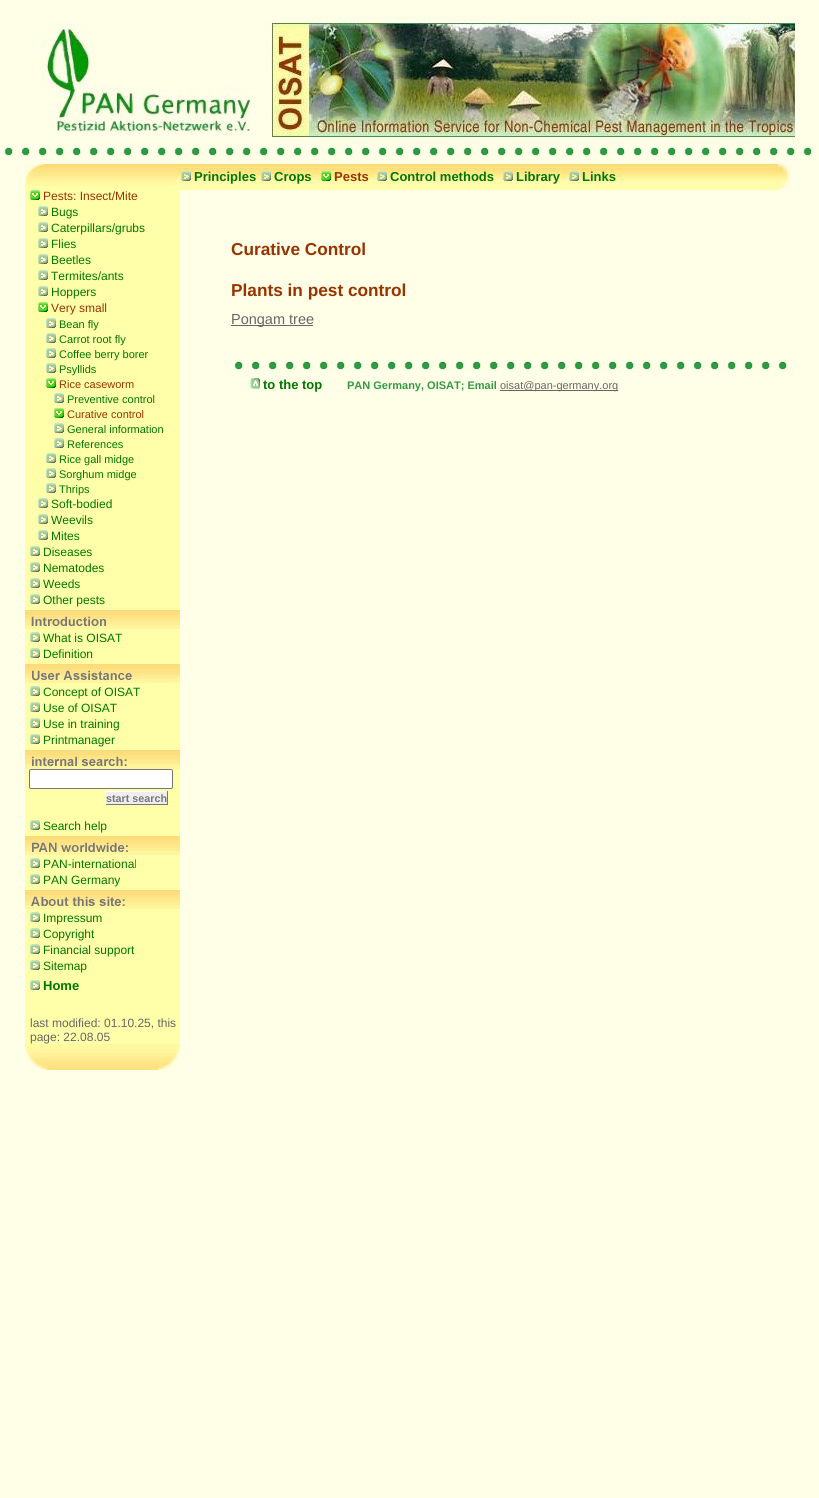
import math
import cairo



def rounded_rect(context, x, y, w, h, r):
    context.new_sub_path()
    for i, (u, v) in enumerate([(x + w - r, y + h - r), (x + r, y + h - r), (x + r, y + r), (x + w - r, y + r)]):
        context.arc(u, v, r, i * math.pi / 2, (i + 1) * math.pi / 2)
    context.close_path()


def draw_image(context, path, x, y, w, h):
    context.save()
    context.set_source_surface(cairo.ImageSurface.create_from_png(path), x, y)
    context.rectangle(x, y, w, h)
    context.fill()
    context.restore()


def draw(context):
    context.set_source_rgb(1, 1, 231 / 255)
    context.paint()
    draw_image(context, "images/1.png", 4, 147, 808, 9)
    draw_image(context, "images/2.png", 41, 23, 754, 114)
    context.set_source_rgb(1, 1, 170 / 255)
    context.rectangle(25, 186, 155, 858)
    context.fill()
    draw_image(context, "images/3.png", 176, 164, 600, 26)
    draw_image(context, "images/4.png", 181, 171, 10, 10)
    draw_image(context, "images/4.png", 261, 171, 10, 10)
    draw_image(context, "images/5.png", 321, 171, 10, 10)
    draw_image(context, "images/4.png", 377, 171, 10, 10)
    draw_image(context, "images/4.png", 503, 171, 10, 10)
    draw_image(context, "images/4.png", 569, 171, 10, 10)
    draw_image(context, "images/6.png", 776, 164, 14, 26)
    draw_image(context, "images/7.png", 25, 164, 151, 22)
    draw_image(context, "images/8.png", 30, 190, 10, 10)
    draw_image(context, "images/9.png", 38, 206, 10, 10)
    draw_image(context, "images/9.png", 38, 222, 10, 10)
    draw_image(context, "images/9.png", 38, 238, 10, 10)
    draw_image(context, "images/9.png", 38, 254, 10, 10)
    draw_image(context, "images/9.png", 38, 270, 10, 10)
    draw_image(context, "images/9.png", 38, 286, 10, 10)
    draw_image(context, "images/8.png", 38, 302, 10, 10)
    draw_image(context, "images/9.png", 46, 318, 10, 10)
    draw_image(context, "images/9.png", 46, 333, 10, 10)
    draw_image(context, "images/9.png", 46, 348, 10, 10)
    draw_image(context, "images/9.png", 46, 363, 10, 10)
    draw_image(context, "images/8.png", 46, 378, 10, 10)
    draw_image(context, "images/9.png", 54, 393, 10, 10)
    draw_image(context, "images/8.png", 54, 408, 10, 10)
    draw_image(context, "images/9.png", 54, 423, 10, 10)
    draw_image(context, "images/9.png", 54, 438, 10, 10)
    draw_image(context, "images/9.png", 46, 453, 10, 10)
    draw_image(context, "images/9.png", 46, 468, 10, 10)
    draw_image(context, "images/9.png", 46, 483, 10, 10)
    draw_image(context, "images/9.png", 38, 498, 10, 10)
    draw_image(context, "images/9.png", 38, 514, 10, 10)
    draw_image(context, "images/9.png", 38, 530, 10, 10)
    draw_image(context, "images/9.png", 30, 546, 10, 10)
    draw_image(context, "images/9.png", 30, 562, 10, 10)
    draw_image(context, "images/9.png", 30, 578, 10, 10)
    draw_image(context, "images/9.png", 30, 594, 10, 10)
    draw_image(context, "images/10.png", 25, 610, 155, 19)
    draw_image(context, "images/9.png", 30, 632, 10, 10)
    draw_image(context, "images/9.png", 30, 648, 10, 10)
    draw_image(context, "images/11.png", 25, 664, 155, 19)
    draw_image(context, "images/9.png", 30, 686, 10, 10)
    draw_image(context, "images/9.png", 30, 702, 10, 10)
    draw_image(context, "images/9.png", 30, 718, 10, 10)
    draw_image(context, "images/9.png", 30, 734, 10, 10)
    draw_image(context, "images/12.png", 25, 750, 155, 19)
    context.set_source_rgb(1, 1, 1)
    rounded_rect(context, 29.5, 769.5, 143, 19, 1.5)
    context.fill_preserve()
    context.set_source_rgb(118 / 255, 118 / 255, 118 / 255)
    context.set_line_width(1)
    context.stroke()
    context.set_source_rgb(238 / 255, 238 / 255, 238 / 255)
    context.rectangle(106, 792, 61, 12)
    context.fill()
    context.set_source_rgb(1, 1, 1)
    context.rectangle(105, 791, 63, 1)
    context.fill()
    context.set_source_rgb(119 / 255, 119 / 255, 119 / 255)
    context.rectangle(167, 791, 1, 14)
    context.fill()
    context.rectangle(105, 804, 63, 1)
    context.fill()
    context.set_source_rgb(1, 1, 1)
    context.rectangle(105, 791, 1, 14)
    context.fill()
    draw_image(context, "images/9.png", 30, 820, 10, 10)
    draw_image(context, "images/13.png", 25, 836, 155, 19)
    draw_image(context, "images/9.png", 30, 858, 10, 10)
    draw_image(context, "images/9.png", 30, 874, 10, 10)
    draw_image(context, "images/14.png", 25, 890, 155, 19)
    draw_image(context, "images/9.png", 30, 912, 10, 10)
    draw_image(context, "images/9.png", 30, 928, 10, 10)
    draw_image(context, "images/9.png", 30, 944, 10, 10)
    draw_image(context, "images/9.png", 30, 960, 10, 10)
    draw_image(context, "images/9.png", 30, 980, 10, 10)
    draw_image(context, "images/15.png", 25, 1044, 155, 26)
    context.set_source_rgb(102 / 255, 102 / 255, 102 / 255)
    context.rectangle(231, 325, 82, 1)
    context.fill()
    draw_image(context, "images/16.png", 234, 361, 553, 9)
    draw_image(context, "images/17.png", 250, 378, 10, 11)
    context.rectangle(500, 390, 118, 1)
    context.fill()
    context.select_font_face("Liberation Sans", cairo.FontSlant.NORMAL, cairo.FontWeight.BOLD)
    context.set_font_size(13)
    context.set_source_rgb(0, 119 / 255, 0)
    context.move_to(194, 181)
    context.show_text("Principles")
    context.move_to(274, 181)
    context.show_text("Crops")
    context.set_source_rgb(153 / 255, 51 / 255, 0)
    context.move_to(334, 181)
    context.show_text("Pests")
    context.set_source_rgb(0, 119 / 255, 0)
    context.move_to(390, 181)
    context.show_text("Control methods")
    context.move_to(516, 181)
    context.show_text("Library")
    context.move_to(582, 181)
    context.show_text("Links")
    context.select_font_face("Liberation Sans")
    context.set_font_size(12)
    context.set_source_rgb(153 / 255, 51 / 255, 0)
    context.move_to(43, 200)
    context.show_text("Pests: Insect/Mite")
    context.set_source_rgb(0, 119 / 255, 0)
    context.move_to(51, 216)
    context.show_text("Bugs")
    context.move_to(51, 232)
    context.show_text("Caterpillars/grubs")
    context.move_to(51, 248)
    context.show_text("Flies")
    context.move_to(51, 264)
    context.show_text("Beetles")
    context.move_to(51, 280)
    context.show_text("Termites/ants")
    context.move_to(51, 296)
    context.show_text("Hoppers")
    context.set_source_rgb(153 / 255, 51 / 255, 0)
    context.move_to(51, 312)
    context.show_text("Very small")
    context.set_font_size(11)
    context.set_source_rgb(0, 119 / 255, 0)
    context.move_to(59, 328)
    context.show_text("Bean fly")
    context.move_to(59, 343)
    context.show_text("Carrot root fly")
    context.move_to(59, 358)
    context.show_text("Coffee berry borer")
    context.move_to(59, 373)
    context.show_text("Psyllids")
    context.set_source_rgb(153 / 255, 51 / 255, 0)
    context.move_to(59, 388)
    context.show_text("Rice caseworm")
    context.set_source_rgb(0, 119 / 255, 0)
    context.move_to(67, 403)
    context.show_text("Preventive control")
    context.set_source_rgb(153 / 255, 51 / 255, 0)
    context.move_to(67, 418)
    context.show_text("Curative control")
    context.set_source_rgb(0, 119 / 255, 0)
    context.move_to(67, 433)
    context.show_text("General information")
    context.move_to(67, 448)
    context.show_text("References")
    context.move_to(59, 463)
    context.show_text("Rice gall midge")
    context.move_to(59, 478)
    context.show_text("Sorghum midge")
    context.move_to(59, 493)
    context.show_text("Thrips")
    context.set_font_size(12)
    context.move_to(51, 508)
    context.show_text("Soft-bodied")
    context.move_to(51, 524)
    context.show_text("Weevils")
    context.move_to(51, 540)
    context.show_text("Mites")
    context.move_to(43, 556)
    context.show_text("Diseases")
    context.move_to(43, 572)
    context.show_text("Nematodes")
    context.move_to(43, 588)
    context.show_text("Weeds")
    context.move_to(43, 604)
    context.show_text("Other pests")
    context.move_to(43, 642)
    context.show_text("What is OISAT")
    context.move_to(43, 658)
    context.show_text("Definition")
    context.move_to(43, 696)
    context.show_text("Concept of OISAT")
    context.move_to(43, 712)
    context.show_text("Use of OISAT")
    context.move_to(43, 728)
    context.show_text("Use in training")
    context.move_to(43, 744)
    context.show_text("Printmanager")
    context.select_font_face("Liberation Sans", cairo.FontSlant.NORMAL, cairo.FontWeight.BOLD)
    context.set_font_size(10.75)
    context.set_source_rgb(119 / 255, 119 / 255, 119 / 255)
    context.move_to(106, 802)
    context.show_text("start search")
    context.select_font_face("Liberation Sans")
    context.set_font_size(12)
    context.set_source_rgb(0, 119 / 255, 0)
    context.move_to(43, 830)
    context.show_text("Search help")
    context.move_to(43, 868)
    context.show_text("PAN-international")
    context.move_to(43, 884)
    context.show_text("PAN Germany")
    context.move_to(43, 922)
    context.show_text("Impressum")
    context.move_to(43, 938)
    context.show_text("Copyright")
    context.move_to(43, 954)
    context.show_text("Financial support")
    context.move_to(43, 970)
    context.show_text("Sitemap")
    context.select_font_face("Liberation Sans", cairo.FontSlant.NORMAL, cairo.FontWeight.BOLD)
    context.set_font_size(13)
    context.move_to(43, 990)
    context.show_text("Home")
    context.select_font_face("Liberation Sans")
    context.set_font_size(12)
    context.set_source_rgb(102 / 255, 102 / 255, 102 / 255)
    context.move_to(30, 1027)
    context.show_text("last modified: 01.10.25, this")
    context.move_to(30, 1041)
    context.show_text("page: 22.08.05")
    context.select_font_face("Liberation Sans", cairo.FontSlant.NORMAL, cairo.FontWeight.BOLD)
    context.set_font_size(17.25)
    context.set_source_rgb(153 / 255, 51 / 255, 0)
    context.move_to(231, 255)
    context.show_text("Curative Control")
    context.move_to(231, 296)
    context.show_text("Plants in pest control")
    context.select_font_face("Liberation Sans")
    context.set_font_size(14.5)
    context.set_source_rgb(102 / 255, 102 / 255, 102 / 255)
    context.move_to(231, 324)
    context.show_text("Pongam tree")
    context.select_font_face("Liberation Sans", cairo.FontSlant.NORMAL, cairo.FontWeight.BOLD)
    context.set_font_size(13)
    context.set_source_rgb(0, 119 / 255, 0)
    context.move_to(263, 389)
    context.show_text("to the top")
    context.set_font_size(11)
    context.set_source_rgb(51 / 255, 153 / 255, 68 / 255)
    context.move_to(347, 389)
    context.show_text("PAN Germany, OISAT; Email")
    context.select_font_face("Liberation Sans")
    context.set_source_rgb(102 / 255, 102 / 255, 102 / 255)
    context.move_to(500, 389)
    context.show_text("oisat@pan-germany.org")


surface = cairo.ImageSurface(cairo.Format.RGB24, 819, 1498)
context = cairo.Context(surface)
options = cairo.FontOptions()
options.set_hint_metrics(cairo.HintMetrics.OFF)
options.set_hint_style(cairo.HintStyle.NONE)
context.set_font_options(options)
context.set_miter_limit(4)
draw(context)
surface.write_to_png("out.png")
